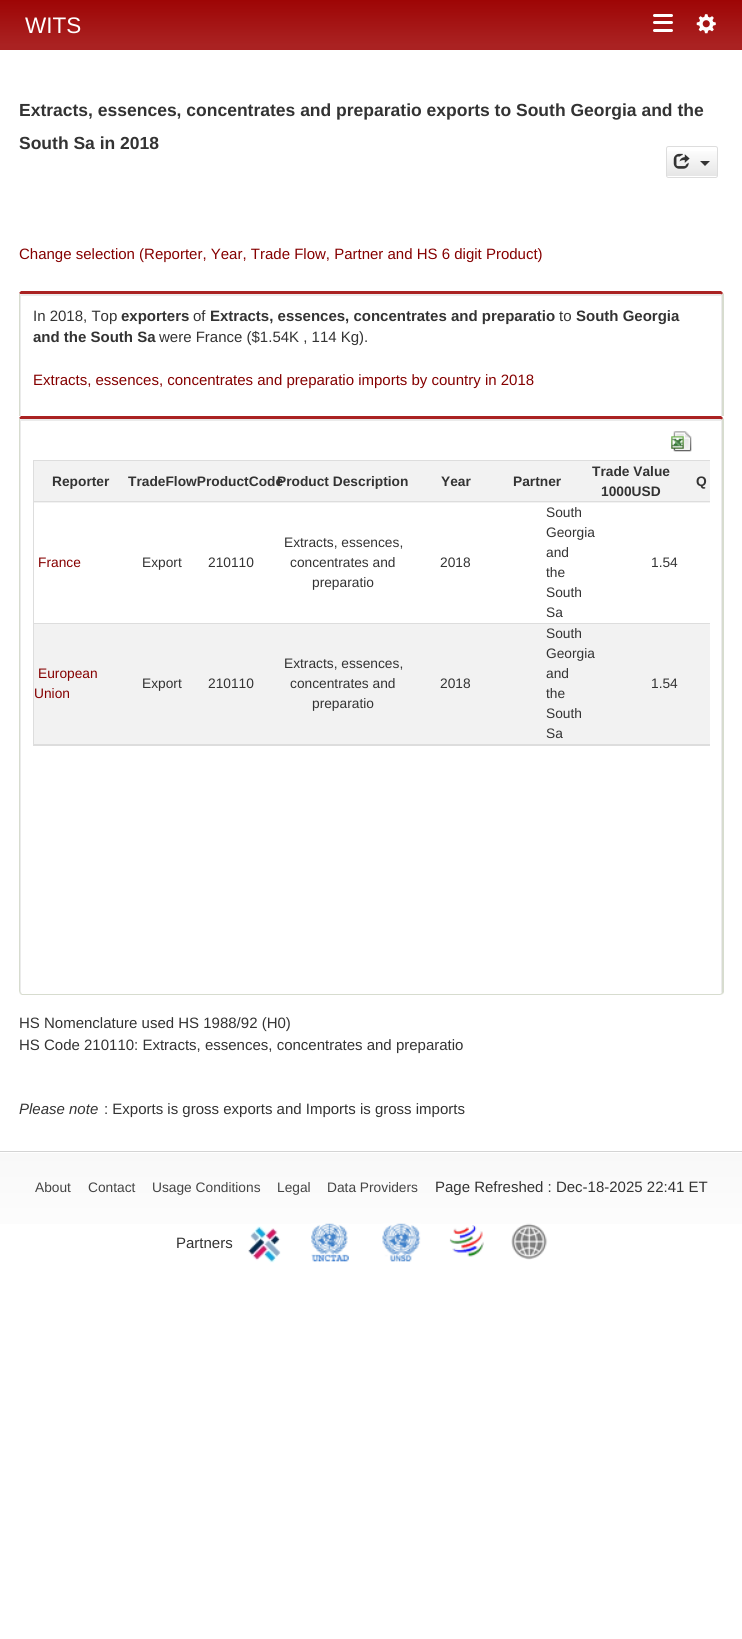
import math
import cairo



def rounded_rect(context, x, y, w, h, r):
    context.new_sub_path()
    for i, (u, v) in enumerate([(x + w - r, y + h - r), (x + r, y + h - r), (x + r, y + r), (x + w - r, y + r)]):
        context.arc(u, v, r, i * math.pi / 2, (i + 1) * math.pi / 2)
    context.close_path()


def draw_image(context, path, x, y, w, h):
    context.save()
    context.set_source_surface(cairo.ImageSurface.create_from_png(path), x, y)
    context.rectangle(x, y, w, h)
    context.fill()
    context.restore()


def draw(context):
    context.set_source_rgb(1, 1, 1)
    context.paint()
    gradient = cairo.LinearGradient(371, 0, 371, 45)
    gradient.add_color_stop_rgba(0, 158 / 255, 5 / 255, 5 / 255, 1)
    gradient.add_color_stop_rgba(1, 170 / 255, 34 / 255, 34 / 255, 1)
    context.set_source(gradient)
    context.rectangle(0, 0, 742, 45)
    context.fill()
    context.set_source_rgb(170 / 255, 34 / 255, 34 / 255)
    context.rectangle(0, 45, 742, 5)
    context.fill()
    context.set_source_rgb(1, 1, 1)
    rounded_rect(context, 653, 14, 20, 3, 1.5)
    context.fill()
    rounded_rect(context, 653, 21, 20, 3, 1.5)
    context.fill()
    rounded_rect(context, 653, 29, 20, 3, 1.5)
    context.fill()
    draw_image(context, "images/1.png", 696, 14, 20, 20)
    gradient = cairo.LinearGradient(692, 148, 692, 176)
    gradient.add_color_stop_rgba(0, 1, 1, 1, 1)
    gradient.add_color_stop_rgba(1, 230 / 255, 230 / 255, 230 / 255, 1)
    context.set_source(gradient)
    context.rectangle(666, 151, 52, 25)
    context.fill()
    rounded_rect(context, 666.5, 146.5, 51, 31, 2)
    context.set_source_rgb(221 / 255, 221 / 255, 221 / 255)
    context.set_line_width(1)
    context.stroke()
    draw_image(context, "images/2.png", 673, 153, 17, 16)
    context.set_source_rgb(51 / 255, 51 / 255, 51 / 255)
    context.new_path()
    context.move_to(700, 161)
    context.line_to(710, 161)
    context.line_to(705, 166)
    context.close_path()
    context.fill()
    context.set_source_rgb(235 / 255, 235 / 255, 235 / 255)
    context.new_path()
    context.move_to(22, 294)
    context.curve_to(21, 294, 20, 294, 20, 295)
    context.line_to(20, 475)
    context.curve_to(20, 476, 21, 477, 21, 477)
    context.line_to(21, 476)
    context.line_to(21, 296)
    context.line_to(721, 296)
    context.line_to(721, 477)
    context.curve_to(722, 477, 722, 476, 722, 475)
    context.line_to(722, 295)
    context.curve_to(722, 294, 721, 294, 720, 294)
    context.close_path()
    context.fill()
    context.set_source_rgb(170 / 255, 34 / 255, 34 / 255)
    context.new_path()
    context.move_to(22, 294)
    context.line_to(20, 294)
    context.line_to(19, 293)
    context.line_to(21, 291)
    context.line_to(721, 291)
    context.line_to(723, 293)
    context.line_to(722, 295)
    context.curve_to(722, 294, 721, 294, 720, 294)
    context.close_path()
    context.fill()
    context.set_source_rgb(215 / 255, 220 / 255, 207 / 255)
    context.new_path()
    context.move_to(724, 476)
    context.line_to(723, 478)
    context.line_to(722, 477)
    context.curve_to(726, 467, 722, 456, 722, 445)
    context.line_to(722, 295)
    context.line_to(723, 293)
    context.line_to(724, 294)
    context.close_path()
    context.fill()
    context.new_path()
    context.move_to(20, 478)
    context.line_to(19, 475)
    context.line_to(19, 295)
    context.line_to(19, 293)
    context.line_to(20, 294)
    context.line_to(20, 445)
    context.curve_to(20, 456, 15, 468, 21, 477)
    context.close_path()
    context.fill()
    context.set_source_rgb(1, 1, 1)
    context.rectangle(18, 416, 706, 62)
    context.fill()
    context.set_source_rgb(235 / 255, 235 / 255, 235 / 255)
    context.new_path()
    context.move_to(22, 419)
    context.curve_to(21, 419, 20, 419, 20, 420)
    context.line_to(20, 991)
    context.curve_to(20, 992, 21, 993, 22, 994)
    context.line_to(21, 992)
    context.line_to(21, 421)
    context.line_to(721, 421)
    context.line_to(721, 994)
    context.curve_to(722, 993, 722, 992, 722, 991)
    context.line_to(722, 420)
    context.curve_to(722, 419, 721, 419, 720, 419)
    context.close_path()
    context.fill()
    context.set_source_rgb(170 / 255, 34 / 255, 34 / 255)
    context.new_path()
    context.move_to(22, 419)
    context.line_to(20, 419)
    context.line_to(19, 418)
    context.line_to(21, 416)
    context.line_to(721, 416)
    context.line_to(723, 418)
    context.line_to(722, 420)
    context.curve_to(722, 419, 721, 419, 720, 419)
    context.close_path()
    context.fill()
    context.set_source_rgb(215 / 255, 220 / 255, 207 / 255)
    context.new_path()
    context.move_to(724, 992)
    context.line_to(723, 994)
    context.line_to(722, 993)
    context.line_to(722, 991)
    context.line_to(722, 420)
    context.line_to(723, 418)
    context.line_to(724, 419)
    context.close_path()
    context.fill()
    context.new_path()
    context.move_to(22, 995)
    context.line_to(720, 995)
    context.line_to(723, 994)
    context.line_to(722, 993)
    context.line_to(720, 994)
    context.line_to(22, 994)
    context.line_to(21, 993)
    context.line_to(20, 994)
    context.close_path()
    context.fill()
    context.new_path()
    context.move_to(20, 994)
    context.line_to(19, 991)
    context.line_to(19, 420)
    context.line_to(19, 418)
    context.line_to(20, 419)
    context.line_to(20, 991)
    context.line_to(21, 993)
    context.close_path()
    context.fill()
    draw_image(context, "images/3.png", 671, 431, 21, 21)
    context.save()
    context.rectangle(33, 460, 677, 544)
    context.clip()
    context.rectangle(33.5, 460.5, 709, 285)
    context.set_source_rgb(221 / 255, 221 / 255, 221 / 255)
    context.stroke()
    context.restore()
    context.set_source_rgb(242 / 255, 242 / 255, 242 / 255)
    context.rectangle(34, 461, 676, 42)
    context.fill()
    context.set_source_rgb(221 / 255, 221 / 255, 221 / 255)
    context.rectangle(34, 501, 676, 1)
    context.fill()
    context.rectangle(34, 623, 676, 1)
    context.fill()
    context.set_source_rgb(242 / 255, 242 / 255, 242 / 255)
    context.rectangle(34, 624, 676, 120)
    context.fill()
    context.set_source_rgb(221 / 255, 221 / 255, 221 / 255)
    context.rectangle(34, 744, 676, 1)
    context.fill()
    gradient = cairo.LinearGradient(371, 1153, 371, 1264)
    gradient.add_color_stop_rgba(0, 248 / 255, 248 / 255, 248 / 255, 1)
    gradient.add_color_stop_rgba(1, 1, 1, 1, 1)
    context.set_source(gradient)
    context.rectangle(0, 1153, 742, 71)
    context.fill()
    context.set_source_rgb(212 / 255, 212 / 255, 212 / 255)
    context.rectangle(0, 1151, 742, 1)
    context.fill()
    draw_image(context, "images/4.png", 248, 1226, 33, 37)
    draw_image(context, "images/5.png", 311, 1223, 38, 39)
    draw_image(context, "images/6.png", 382, 1223, 39, 39)
    draw_image(context, "images/7.png", 449, 1225, 35, 32)
    draw_image(context, "images/8.png", 511, 1223, 37, 37)
    context.select_font_face("Liberation Sans")
    context.set_font_size(22.5)
    context.set_source_rgb(1, 1, 1)
    context.move_to(25, 33)
    context.show_text("WITS")
    context.select_font_face("Liberation Sans", cairo.FontSlant.NORMAL, cairo.FontWeight.BOLD)
    context.set_font_size(17.5)
    context.set_source_rgb(51 / 255, 51 / 255, 51 / 255)
    context.move_to(19, 116)
    context.show_text("Extracts, essences, concentrates and preparatio exports to South Georgia and the")
    context.move_to(19, 149)
    context.show_text("South Sa in 2018")
    context.select_font_face("Liberation Sans")
    context.set_font_size(15)
    context.set_source_rgb(133 / 255, 0, 0)
    context.move_to(19, 259)
    context.show_text("Change selection (Reporter, Year, Trade Flow, Partner and HS 6 digit Product)")
    context.set_source_rgb(51 / 255, 51 / 255, 51 / 255)
    context.move_to(33, 321)
    context.show_text("In 2018, Top")
    context.select_font_face("Liberation Sans", cairo.FontSlant.NORMAL, cairo.FontWeight.BOLD)
    context.move_to(121, 321)
    context.show_text("exporters")
    context.select_font_face("Liberation Sans")
    context.move_to(193, 321)
    context.show_text("of")
    context.select_font_face("Liberation Sans", cairo.FontSlant.NORMAL, cairo.FontWeight.BOLD)
    context.move_to(210, 321)
    context.show_text("Extracts, essences, concentrates and preparatio")
    context.select_font_face("Liberation Sans")
    context.move_to(559, 321)
    context.show_text("to")
    context.select_font_face("Liberation Sans", cairo.FontSlant.NORMAL, cairo.FontWeight.BOLD)
    context.move_to(576, 321)
    context.show_text("South Georgia")
    context.move_to(33, 342)
    context.show_text("and the South Sa")
    context.select_font_face("Liberation Sans")
    context.move_to(159, 342)
    context.show_text("were France ($1.54K , 114 Kg).")
    context.set_source_rgb(133 / 255, 0, 0)
    context.move_to(33, 385)
    context.show_text("Extracts, essences, concentrates and preparatio imports by country in 2018")
    context.select_font_face("Liberation Sans", cairo.FontSlant.NORMAL, cairo.FontWeight.BOLD)
    context.set_font_size(13.75)
    context.set_source_rgb(51 / 255, 51 / 255, 51 / 255)
    context.move_to(52, 486)
    context.show_text("Reporter")
    context.move_to(128, 486)
    context.show_text("TradeFlowProductCode")
    context.move_to(277, 486)
    context.show_text("Product Description")
    context.move_to(441, 486)
    context.show_text("Year")
    context.move_to(513, 486)
    context.show_text("Partner")
    context.move_to(592, 476)
    context.show_text("Trade Value")
    context.move_to(601, 496)
    context.show_text("1000USD")
    context.move_to(696, 486)
    context.show_text("Q")
    context.select_font_face("Liberation Sans")
    context.set_source_rgb(133 / 255, 0, 0)
    context.move_to(38, 567)
    context.show_text("France")
    context.set_source_rgb(51 / 255, 51 / 255, 51 / 255)
    context.move_to(142, 567)
    context.show_text("Export")
    context.move_to(208, 567)
    context.show_text("210110")
    context.move_to(284, 547)
    context.show_text("Extracts, essences,")
    context.move_to(290, 567)
    context.show_text("concentrates and")
    context.move_to(312, 587)
    context.show_text("preparatio")
    context.move_to(440, 567)
    context.show_text("2018")
    context.move_to(546, 517)
    context.show_text("South")
    context.move_to(546, 537)
    context.show_text("Georgia")
    context.move_to(546, 557)
    context.show_text("and")
    context.move_to(546, 577)
    context.show_text("the")
    context.move_to(546, 597)
    context.show_text("South")
    context.move_to(546, 617)
    context.show_text("Sa")
    context.move_to(651, 567)
    context.show_text("1.54")
    context.set_source_rgb(133 / 255, 0, 0)
    context.move_to(38, 678)
    context.show_text("European")
    context.move_to(34, 698)
    context.show_text("Union")
    context.set_source_rgb(51 / 255, 51 / 255, 51 / 255)
    context.move_to(142, 688)
    context.show_text("Export")
    context.move_to(208, 688)
    context.show_text("210110")
    context.move_to(284, 668)
    context.show_text("Extracts, essences,")
    context.move_to(290, 688)
    context.show_text("concentrates and")
    context.move_to(312, 708)
    context.show_text("preparatio")
    context.move_to(440, 688)
    context.show_text("2018")
    context.move_to(546, 638)
    context.show_text("South")
    context.move_to(546, 658)
    context.show_text("Georgia")
    context.move_to(546, 678)
    context.show_text("and")
    context.move_to(546, 698)
    context.show_text("the")
    context.move_to(546, 718)
    context.show_text("South")
    context.move_to(546, 738)
    context.show_text("Sa")
    context.move_to(651, 688)
    context.show_text("1.54")
    context.set_font_size(15)
    context.move_to(19, 1028)
    context.show_text("HS Nomenclature used HS 1988/92 (H0)")
    context.move_to(19, 1050)
    context.show_text("HS Code 210110: Extracts, essences, concentrates and preparatio")
    context.select_font_face("Liberation Sans", cairo.FontSlant.ITALIC)
    context.move_to(19, 1114)
    context.show_text("Please note")
    context.select_font_face("Liberation Sans")
    context.move_to(104, 1114)
    context.show_text(": Exports is gross exports and Imports is gross imports")
    context.set_font_size(13.75)
    context.set_source_rgb(68 / 255, 68 / 255, 68 / 255)
    context.move_to(35, 1192)
    context.show_text("About")
    context.move_to(88, 1192)
    context.show_text("Contact")
    context.move_to(152, 1192)
    context.show_text("Usage Conditions")
    context.move_to(277, 1192)
    context.show_text("Legal")
    context.move_to(327, 1192)
    context.show_text("Data Providers")
    context.set_font_size(15)
    context.set_source_rgb(51 / 255, 51 / 255, 51 / 255)
    context.move_to(435, 1192)
    context.show_text("Page Refreshed : Dec-18-2025 22:41 ET")
    context.move_to(176, 1248)
    context.show_text("Partners")


surface = cairo.ImageSurface(cairo.Format.RGB24, 742, 1639)
context = cairo.Context(surface)
options = cairo.FontOptions()
options.set_hint_metrics(cairo.HintMetrics.OFF)
options.set_hint_style(cairo.HintStyle.NONE)
context.set_font_options(options)
context.set_miter_limit(4)
draw(context)
surface.write_to_png("out.png")
